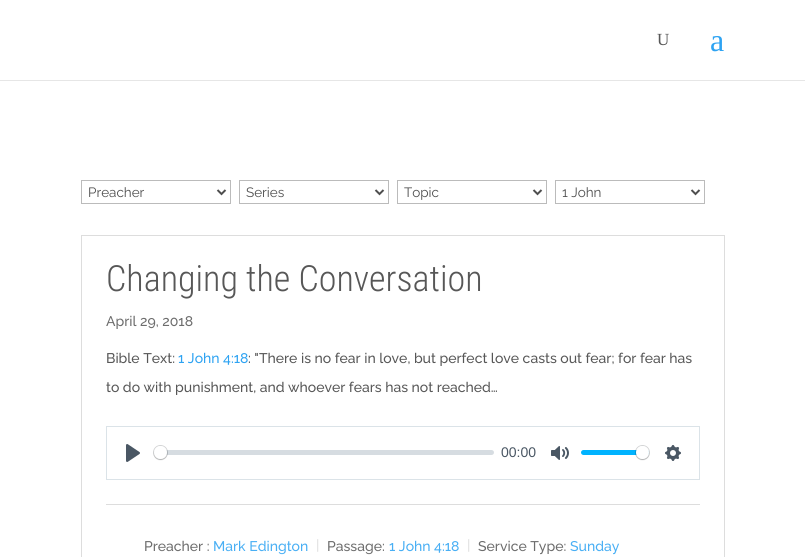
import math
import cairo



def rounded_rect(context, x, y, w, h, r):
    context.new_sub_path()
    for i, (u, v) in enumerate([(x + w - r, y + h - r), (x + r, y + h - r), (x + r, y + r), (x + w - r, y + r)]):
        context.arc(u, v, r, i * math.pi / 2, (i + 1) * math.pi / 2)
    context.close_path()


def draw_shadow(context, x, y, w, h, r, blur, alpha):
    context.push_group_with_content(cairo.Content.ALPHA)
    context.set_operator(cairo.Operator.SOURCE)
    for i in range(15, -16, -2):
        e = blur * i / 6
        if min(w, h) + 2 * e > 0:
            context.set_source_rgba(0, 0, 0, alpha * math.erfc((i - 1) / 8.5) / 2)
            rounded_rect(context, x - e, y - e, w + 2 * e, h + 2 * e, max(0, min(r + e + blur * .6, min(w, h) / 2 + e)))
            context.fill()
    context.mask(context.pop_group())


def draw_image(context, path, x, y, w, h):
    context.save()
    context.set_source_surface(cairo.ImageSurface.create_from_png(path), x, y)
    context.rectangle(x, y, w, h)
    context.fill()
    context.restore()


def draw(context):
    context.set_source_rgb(1, 1, 1)
    context.paint()
    context.set_source_rgb(230 / 255, 230 / 255, 230 / 255)
    context.rectangle(0, 80, 805, 1)
    context.fill()
    context.rectangle(81.5, 180.5, 149, 23)
    context.set_source_rgb(187 / 255, 187 / 255, 187 / 255)
    context.set_line_width(1)
    context.stroke()
    context.new_path()
    context.move_to(217.5, 190)
    context.line_to(221.5, 194)
    context.line_to(225.5, 190)
    context.set_source_rgb(78 / 255, 78 / 255, 78 / 255)
    context.set_line_width(2)
    context.stroke()
    context.rectangle(239.5, 180.5, 149, 23)
    context.set_source_rgb(187 / 255, 187 / 255, 187 / 255)
    context.set_line_width(1)
    context.stroke()
    context.new_path()
    context.move_to(375.5, 190)
    context.line_to(379.5, 194)
    context.line_to(383.5, 190)
    context.set_source_rgb(78 / 255, 78 / 255, 78 / 255)
    context.set_line_width(2)
    context.stroke()
    context.rectangle(397.5, 180.5, 149, 23)
    context.set_source_rgb(187 / 255, 187 / 255, 187 / 255)
    context.set_line_width(1)
    context.stroke()
    context.new_path()
    context.move_to(533.5, 190)
    context.line_to(537.5, 194)
    context.line_to(541.5, 190)
    context.set_source_rgb(78 / 255, 78 / 255, 78 / 255)
    context.set_line_width(2)
    context.stroke()
    context.rectangle(555.5, 180.5, 149, 23)
    context.set_source_rgb(187 / 255, 187 / 255, 187 / 255)
    context.set_line_width(1)
    context.stroke()
    context.new_path()
    context.move_to(691.5, 190)
    context.line_to(695.5, 194)
    context.line_to(699.5, 190)
    context.set_source_rgb(78 / 255, 78 / 255, 78 / 255)
    context.set_line_width(2)
    context.stroke()
    context.rectangle(81.5, 235.5, 643, 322)
    context.set_source_rgb(221 / 255, 221 / 255, 221 / 255)
    context.set_line_width(1)
    context.stroke()
    context.rectangle(106.5, 426.5, 593, 53)
    context.set_source_rgb(219 / 255, 227 / 255, 232 / 255)
    context.stroke()
    draw_image(context, "images/1.png", 126, 444, 14, 18)
    context.set_source_rgba(193 / 255, 201 / 255, 209 / 255, 0.66)
    rounded_rect(context, 154, 450, 340, 5, 2.5)
    context.fill()
    context.arc(160.5, 452.5, 7, 0, 2 * math.pi)
    context.set_source_rgba(35 / 255, 41 / 255, 47 / 255, 0.2)
    context.stroke()
    context.set_source_rgb(0, 0, 0)
    draw_shadow(context, 154, 447, 13, 13, 6.5, 0.5, 0.15)
    context.set_source_rgb(1, 1, 1)
    context.arc(160.5, 452.5, 6.5, 0, 2 * math.pi)
    context.fill()
    draw_image(context, "images/2.png", 551, 446, 18, 14)
    context.set_source_rgb(0, 179 / 255, 1)
    rounded_rect(context, 581, 450, 68, 5, 2.5)
    context.fill()
    context.arc(642.5, 452.5, 7, 0, 2 * math.pi)
    context.set_source_rgba(35 / 255, 41 / 255, 47 / 255, 0.2)
    context.stroke()
    context.set_source_rgb(0, 0, 0)
    draw_shadow(context, 636, 447, 13, 13, 6.5, 0.5, 0.15)
    context.set_source_rgb(1, 1, 1)
    context.arc(642.5, 452.5, 6.5, 0, 2 * math.pi)
    context.fill()
    draw_image(context, "images/3.png", 665, 445, 16, 16)
    context.set_source_rgb(221 / 255, 221 / 255, 221 / 255)
    context.rectangle(106, 504, 594, 1)
    context.fill()
    context.select_font_face("Liberation Serif")
    context.set_font_size(17)
    context.set_source_rgb(87 / 255, 87 / 255, 87 / 255)
    context.move_to(657, 45)
    context.show_text("U")
    context.set_font_size(32)
    context.set_source_rgb(46 / 255, 163 / 255, 242 / 255)
    context.move_to(710, 51)
    context.show_text("a")
    context.select_font_face("Raleway")
    context.set_font_size(13.5)
    context.set_source_rgb(78 / 255, 78 / 255, 78 / 255)
    context.move_to(88, 197)
    context.show_text("Preacher")
    context.move_to(246, 197)
    context.show_text("Series")
    context.move_to(404, 197)
    context.show_text("Topic")
    context.move_to(562, 197)
    context.show_text("1 John")
    context.select_font_face("Roboto Condensed Light")
    context.set_font_size(36)
    context.set_source_rgb(87 / 255, 87 / 255, 87 / 255)
    context.move_to(106, 291)
    context.show_text("Changing the Conversation")
    context.select_font_face("Raleway Medium")
    context.set_font_size(14)
    context.set_source_rgb(109 / 255, 109 / 255, 109 / 255)
    context.move_to(106, 326)
    context.show_text("April 29, 2018")
    context.set_source_rgb(87 / 255, 87 / 255, 87 / 255)
    context.move_to(106, 363)
    context.show_text("Bible Text:")
    context.set_source_rgb(46 / 255, 163 / 255, 242 / 255)
    context.move_to(178, 363)
    context.show_text("1 John 4:18")
    context.set_source_rgb(87 / 255, 87 / 255, 87 / 255)
    context.move_to(248, 363)
    context.show_text(": \"There is no fear in love, but perfect love casts out fear; for fear has")
    context.move_to(106, 392)
    context.show_text("to do with punishment, and whoever fears has not reached…")
    context.select_font_face("Liberation Sans")
    context.set_source_rgb(74 / 255, 87 / 255, 100 / 255)
    context.move_to(501, 457)
    context.show_text("00:00")
    context.select_font_face("Raleway Medium")
    context.set_source_rgb(109 / 255, 109 / 255, 109 / 255)
    context.move_to(144, 551)
    context.show_text("Preacher :")
    context.set_source_rgb(73 / 255, 175 / 255, 244 / 255)
    context.move_to(213, 551)
    context.show_text("Mark Edington")
    context.set_source_rgb(225 / 255, 225 / 255, 225 / 255)
    context.move_to(316, 550)
    context.show_text("|")
    context.set_source_rgb(109 / 255, 109 / 255, 109 / 255)
    context.move_to(327, 551)
    context.show_text("Passage:")
    context.set_source_rgb(73 / 255, 175 / 255, 244 / 255)
    context.move_to(389, 551)
    context.show_text("1 John 4:18")
    context.set_source_rgb(225 / 255, 225 / 255, 225 / 255)
    context.move_to(467, 550)
    context.show_text("|")
    context.set_source_rgb(109 / 255, 109 / 255, 109 / 255)
    context.move_to(478, 551)
    context.show_text("Service Type:")
    context.set_source_rgb(73 / 255, 175 / 255, 244 / 255)
    context.move_to(570, 551)
    context.show_text("Sunday")


surface = cairo.ImageSurface(cairo.Format.RGB24, 805, 557)
context = cairo.Context(surface)
options = cairo.FontOptions()
options.set_hint_metrics(cairo.HintMetrics.OFF)
options.set_hint_style(cairo.HintStyle.NONE)
context.set_font_options(options)
context.set_miter_limit(4)
draw(context)
surface.write_to_png("out.png")
